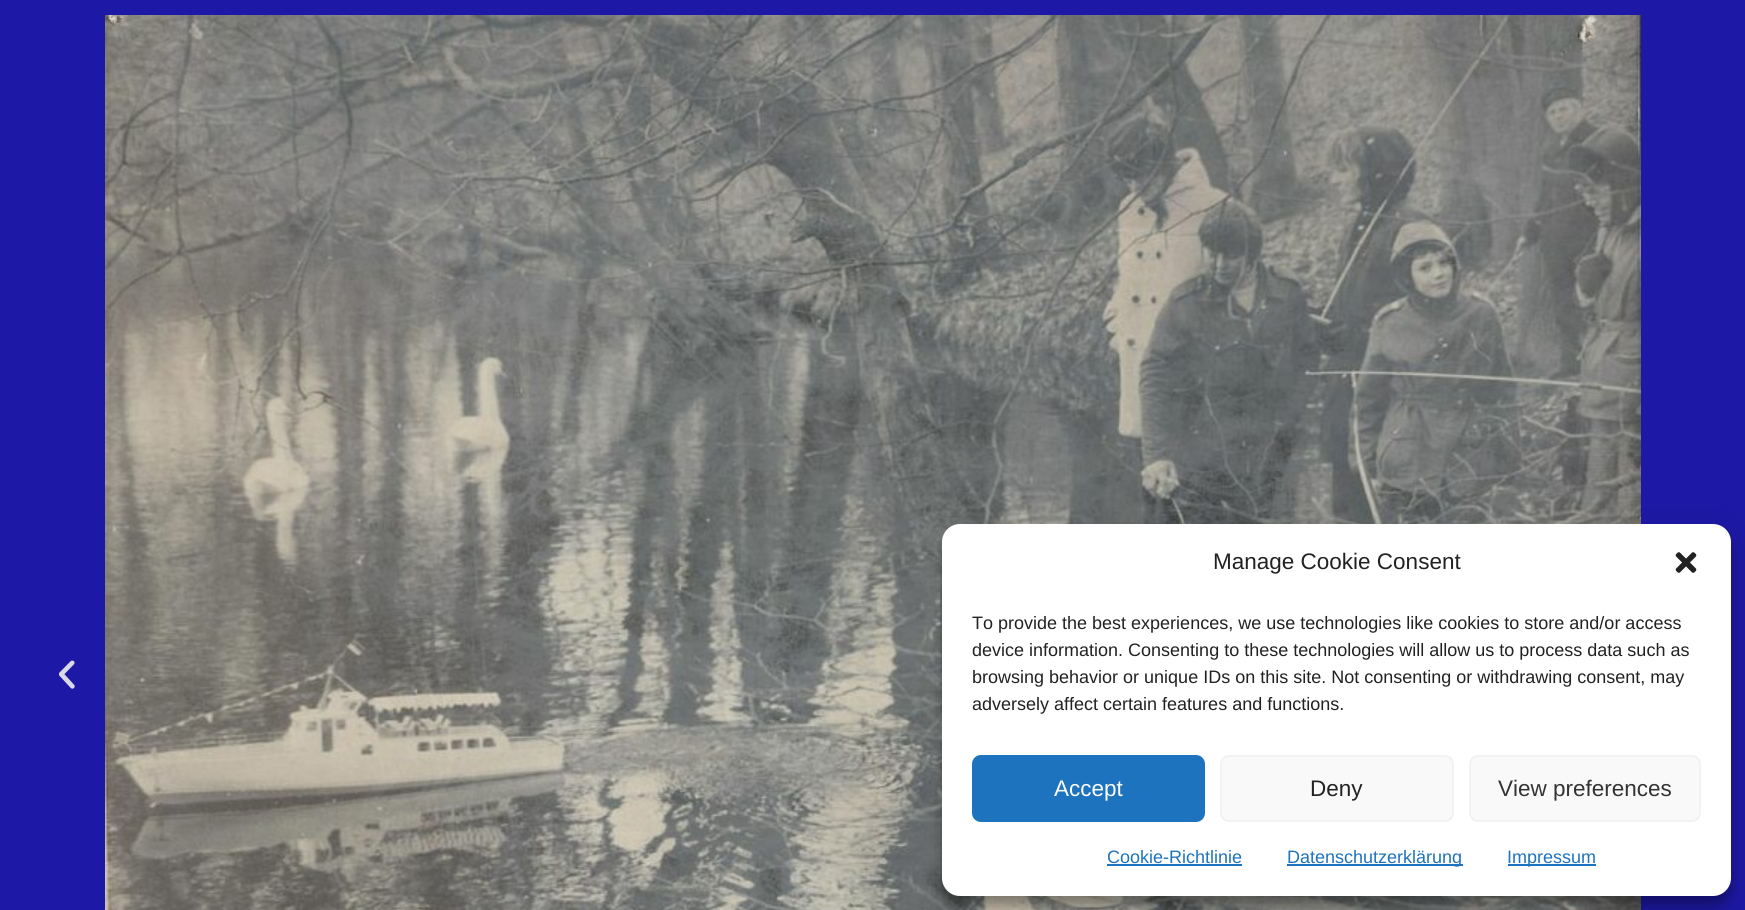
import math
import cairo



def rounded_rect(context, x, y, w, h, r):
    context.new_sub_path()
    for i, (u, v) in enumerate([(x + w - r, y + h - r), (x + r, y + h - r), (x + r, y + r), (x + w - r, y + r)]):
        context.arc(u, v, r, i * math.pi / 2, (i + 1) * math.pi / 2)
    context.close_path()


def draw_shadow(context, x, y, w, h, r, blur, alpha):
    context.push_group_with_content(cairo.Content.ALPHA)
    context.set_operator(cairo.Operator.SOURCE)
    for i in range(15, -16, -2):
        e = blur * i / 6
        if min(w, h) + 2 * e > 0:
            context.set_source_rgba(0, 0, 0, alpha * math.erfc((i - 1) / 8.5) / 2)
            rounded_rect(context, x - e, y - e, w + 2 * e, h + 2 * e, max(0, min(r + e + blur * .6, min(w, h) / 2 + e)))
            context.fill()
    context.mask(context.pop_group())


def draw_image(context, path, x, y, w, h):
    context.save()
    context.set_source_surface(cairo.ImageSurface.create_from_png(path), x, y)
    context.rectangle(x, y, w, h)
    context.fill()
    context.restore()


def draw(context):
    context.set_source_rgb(29 / 255, 24 / 255, 165 / 255)
    context.paint()
    draw_image(context, "images/1.png", 59, 660, 16, 29)
    draw_image(context, "images/2.png", 105, 15, 1536, 895)
    context.set_source_rgb(0, 0, 0)
    draw_shadow(context, 942, 533, 789, 372, 18, 4.5, 0.23)
    draw_shadow(context, 942, 539, 789, 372, 18, 15, 0.19)
    context.set_source_rgb(1, 1, 1)
    rounded_rect(context, 942, 524, 789, 372, 18)
    context.fill()
    draw_image(context, "images/3.png", 1675, 552, 22, 21)
    context.set_source_rgb(30 / 255, 115 / 255, 190 / 255)
    rounded_rect(context, 973, 756, 231, 65, 8)
    context.fill_preserve()
    context.stroke()
    context.set_source_rgb(249 / 255, 249 / 255, 249 / 255)
    rounded_rect(context, 1221, 756, 232, 65, 8)
    context.fill_preserve()
    context.set_source_rgb(242 / 255, 242 / 255, 242 / 255)
    context.stroke()
    context.set_source_rgb(249 / 255, 249 / 255, 249 / 255)
    rounded_rect(context, 1470, 756, 230, 65, 8)
    context.fill_preserve()
    context.set_source_rgb(242 / 255, 242 / 255, 242 / 255)
    context.stroke()
    context.set_source_rgb(30 / 255, 115 / 255, 190 / 255)
    context.rectangle(1107, 864, 135, 2)
    context.fill()
    context.rectangle(1287, 864, 176, 2)
    context.fill()
    context.rectangle(1508, 864, 88, 2)
    context.fill()
    context.select_font_face("Liberation Sans")
    context.set_font_size(22.5)
    context.set_source_rgb(34 / 255, 34 / 255, 34 / 255)
    context.move_to(1213, 569)
    context.show_text("Manage Cookie Consent")
    context.set_font_size(18)
    context.move_to(972, 629)
    context.show_text("To provide the best experiences, we use technologies like cookies to store and/or access")
    context.move_to(972, 656)
    context.show_text("device information. Consenting to these technologies will allow us to process data such as")
    context.move_to(972, 683)
    context.show_text("browsing behavior or unique IDs on this site. Not consenting or withdrawing consent, may")
    context.move_to(972, 710)
    context.show_text("adversely affect certain features and functions.")
    context.set_font_size(22.5)
    context.set_source_rgb(1, 1, 1)
    context.move_to(1054, 796)
    context.show_text("Accept")
    context.set_source_rgb(34 / 255, 34 / 255, 34 / 255)
    context.move_to(1310, 796)
    context.show_text("Deny")
    context.set_source_rgb(51 / 255, 51 / 255, 51 / 255)
    context.move_to(1498, 796)
    context.show_text("View preferences")
    context.set_font_size(18)
    context.set_source_rgb(30 / 255, 115 / 255, 190 / 255)
    context.move_to(1107, 863)
    context.show_text("Cookie-Richtlinie")
    context.move_to(1287, 863)
    context.show_text("Datenschutzerklärung")
    context.move_to(1507, 863)
    context.show_text("Impressum")


surface = cairo.ImageSurface(cairo.Format.RGB24, 1745, 910)
context = cairo.Context(surface)
options = cairo.FontOptions()
options.set_hint_metrics(cairo.HintMetrics.OFF)
options.set_hint_style(cairo.HintStyle.NONE)
context.set_font_options(options)
context.set_miter_limit(4)
draw(context)
surface.write_to_png("out.png")
